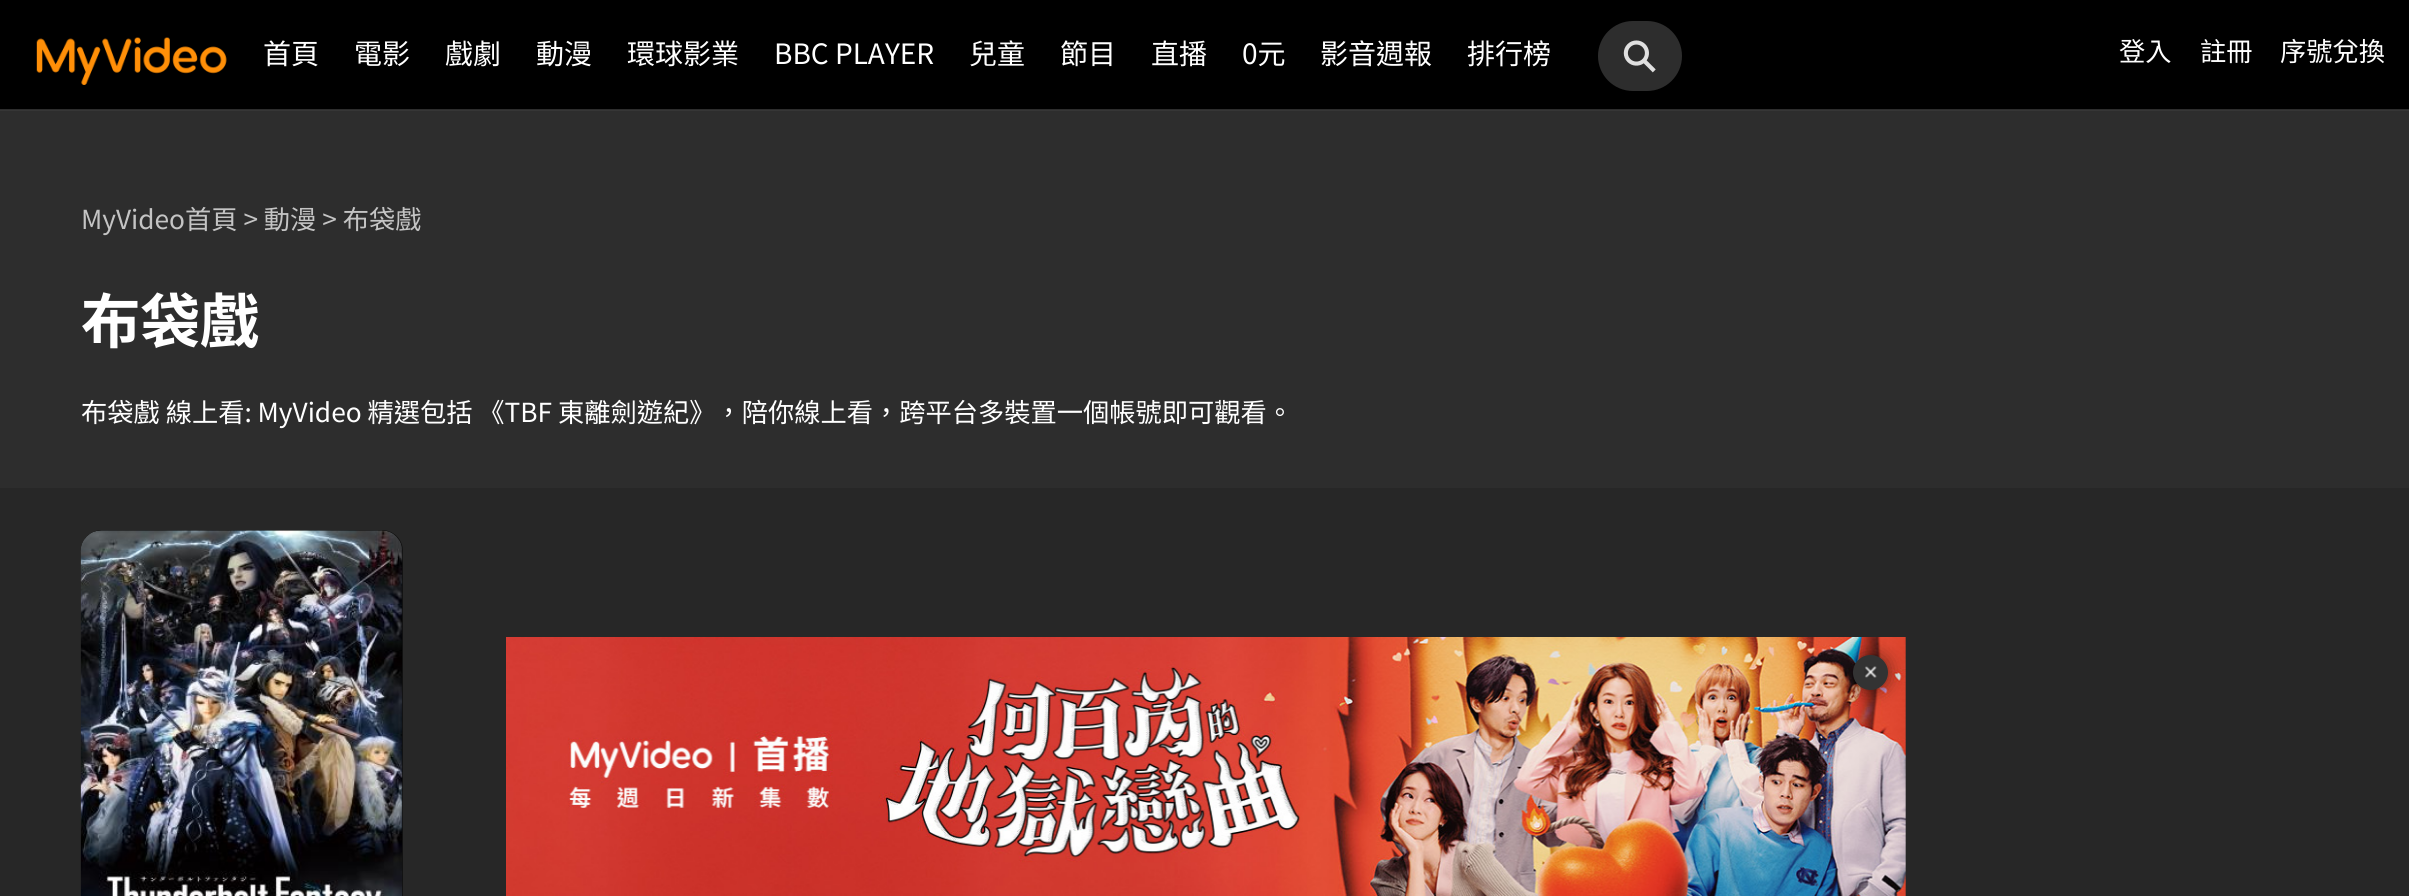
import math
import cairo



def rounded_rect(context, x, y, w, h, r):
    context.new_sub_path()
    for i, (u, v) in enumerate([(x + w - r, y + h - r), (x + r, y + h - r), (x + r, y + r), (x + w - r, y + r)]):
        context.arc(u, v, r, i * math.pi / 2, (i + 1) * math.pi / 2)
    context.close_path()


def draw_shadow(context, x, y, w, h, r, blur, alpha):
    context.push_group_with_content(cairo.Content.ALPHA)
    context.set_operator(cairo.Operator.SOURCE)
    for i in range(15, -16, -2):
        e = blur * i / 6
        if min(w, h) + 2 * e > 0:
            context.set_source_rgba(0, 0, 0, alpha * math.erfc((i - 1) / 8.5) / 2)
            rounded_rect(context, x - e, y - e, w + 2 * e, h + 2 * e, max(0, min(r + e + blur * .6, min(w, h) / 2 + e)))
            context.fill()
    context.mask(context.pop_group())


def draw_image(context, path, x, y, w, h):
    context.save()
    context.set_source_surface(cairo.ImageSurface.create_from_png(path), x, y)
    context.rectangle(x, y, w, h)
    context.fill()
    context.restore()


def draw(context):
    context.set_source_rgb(39 / 255, 39 / 255, 39 / 255)
    context.paint()
    context.set_source_rgb(0, 0, 0)
    context.rectangle(0, 0, 2409, 109)
    context.fill()
    context.set_source_rgb(45 / 255, 45 / 255, 45 / 255)
    context.rectangle(0, 109, 2409, 1)
    context.fill()
    draw_image(context, "images/1.png", 36, 37, 191, 48)
    rounded_rect(context, 1598, 21, 84, 70, 35)
    context.fill()
    draw_image(context, "images/2.png", 1623, 40, 33, 33)
    draw_image(context, "images/4.png", 506, 637, 1400, 259)
    context.set_source_rgb(0, 0, 0)
    draw_shadow(context, 1853, 655, 35, 35, 17.5, 9, 0.5)
    context.set_source_rgb(51 / 255, 51 / 255, 51 / 255)
    context.arc(1870.5, 672.5, 17.5, 0, 2 * math.pi)
    context.fill()
    draw_image(context, "images/3.png", 1864, 666, 13, 12)
    context.set_source_rgb(45 / 255, 45 / 255, 45 / 255)
    context.rectangle(0, 111, 2409, 377)
    context.fill()
    context.set_source_rgb(54 / 255, 54 / 255, 54 / 255)
    context.rectangle(0, 110, 2409, 1)
    context.fill()
    context.set_source_rgb(18 / 255, 18 / 255, 18 / 255)
    rounded_rect(context, 81, 530, 322, 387, 21)
    context.fill()
    draw_image(context, "images/5.png", 80, 530, 323, 366)
    context.select_font_face("Noto Sans TC")
    context.set_font_size(28)
    context.set_source_rgb(1, 1, 1)
    context.move_to(263, 64)
    context.show_text("首頁")
    context.move_to(354, 64)
    context.show_text("電影")
    context.move_to(445, 64)
    context.show_text("戲劇")
    context.move_to(536, 64)
    context.show_text("動漫")
    context.move_to(627, 64)
    context.show_text("環球影業")
    context.move_to(774, 64)
    context.show_text("BBC PLAYER")
    context.move_to(969, 64)
    context.show_text("兒童")
    context.move_to(1060, 64)
    context.show_text("節目")
    context.move_to(1151, 64)
    context.show_text("直播")
    context.move_to(1242, 64)
    context.show_text("0元")
    context.move_to(1320, 64)
    context.show_text("影音週報")
    context.move_to(1467, 64)
    context.show_text("排行榜")
    context.set_font_size(26.25)
    context.move_to(2119, 61)
    context.show_text("登入")
    context.move_to(2200, 61)
    context.show_text("註冊")
    context.move_to(2280, 61)
    context.show_text("序號兌換")
    context.set_source_rgb(196 / 255, 196 / 255, 196 / 255)
    context.move_to(81, 229)
    context.show_text("MyVideo首頁 > 動漫 > 布袋戲")
    context.select_font_face("Noto Sans TC", cairo.FontSlant.NORMAL, cairo.FontWeight.BOLD)
    context.set_font_size(59.5)
    context.set_source_rgb(1, 1, 1)
    context.move_to(81, 343)
    context.show_text("布袋戲")
    context.select_font_face("Noto Sans TC")
    context.set_font_size(26.25)
    context.move_to(81, 422)
    context.show_text("布袋戲 線上看: MyVideo 精選包括 《TBF 東離劍遊紀》，陪你線上看，跨平台多裝置一個帳號即可觀看。")


surface = cairo.ImageSurface(cairo.Format.RGB24, 2409, 896)
context = cairo.Context(surface)
options = cairo.FontOptions()
options.set_hint_metrics(cairo.HintMetrics.OFF)
options.set_hint_style(cairo.HintStyle.NONE)
context.set_font_options(options)
context.set_miter_limit(4)
draw(context)
surface.write_to_png("out.png")
